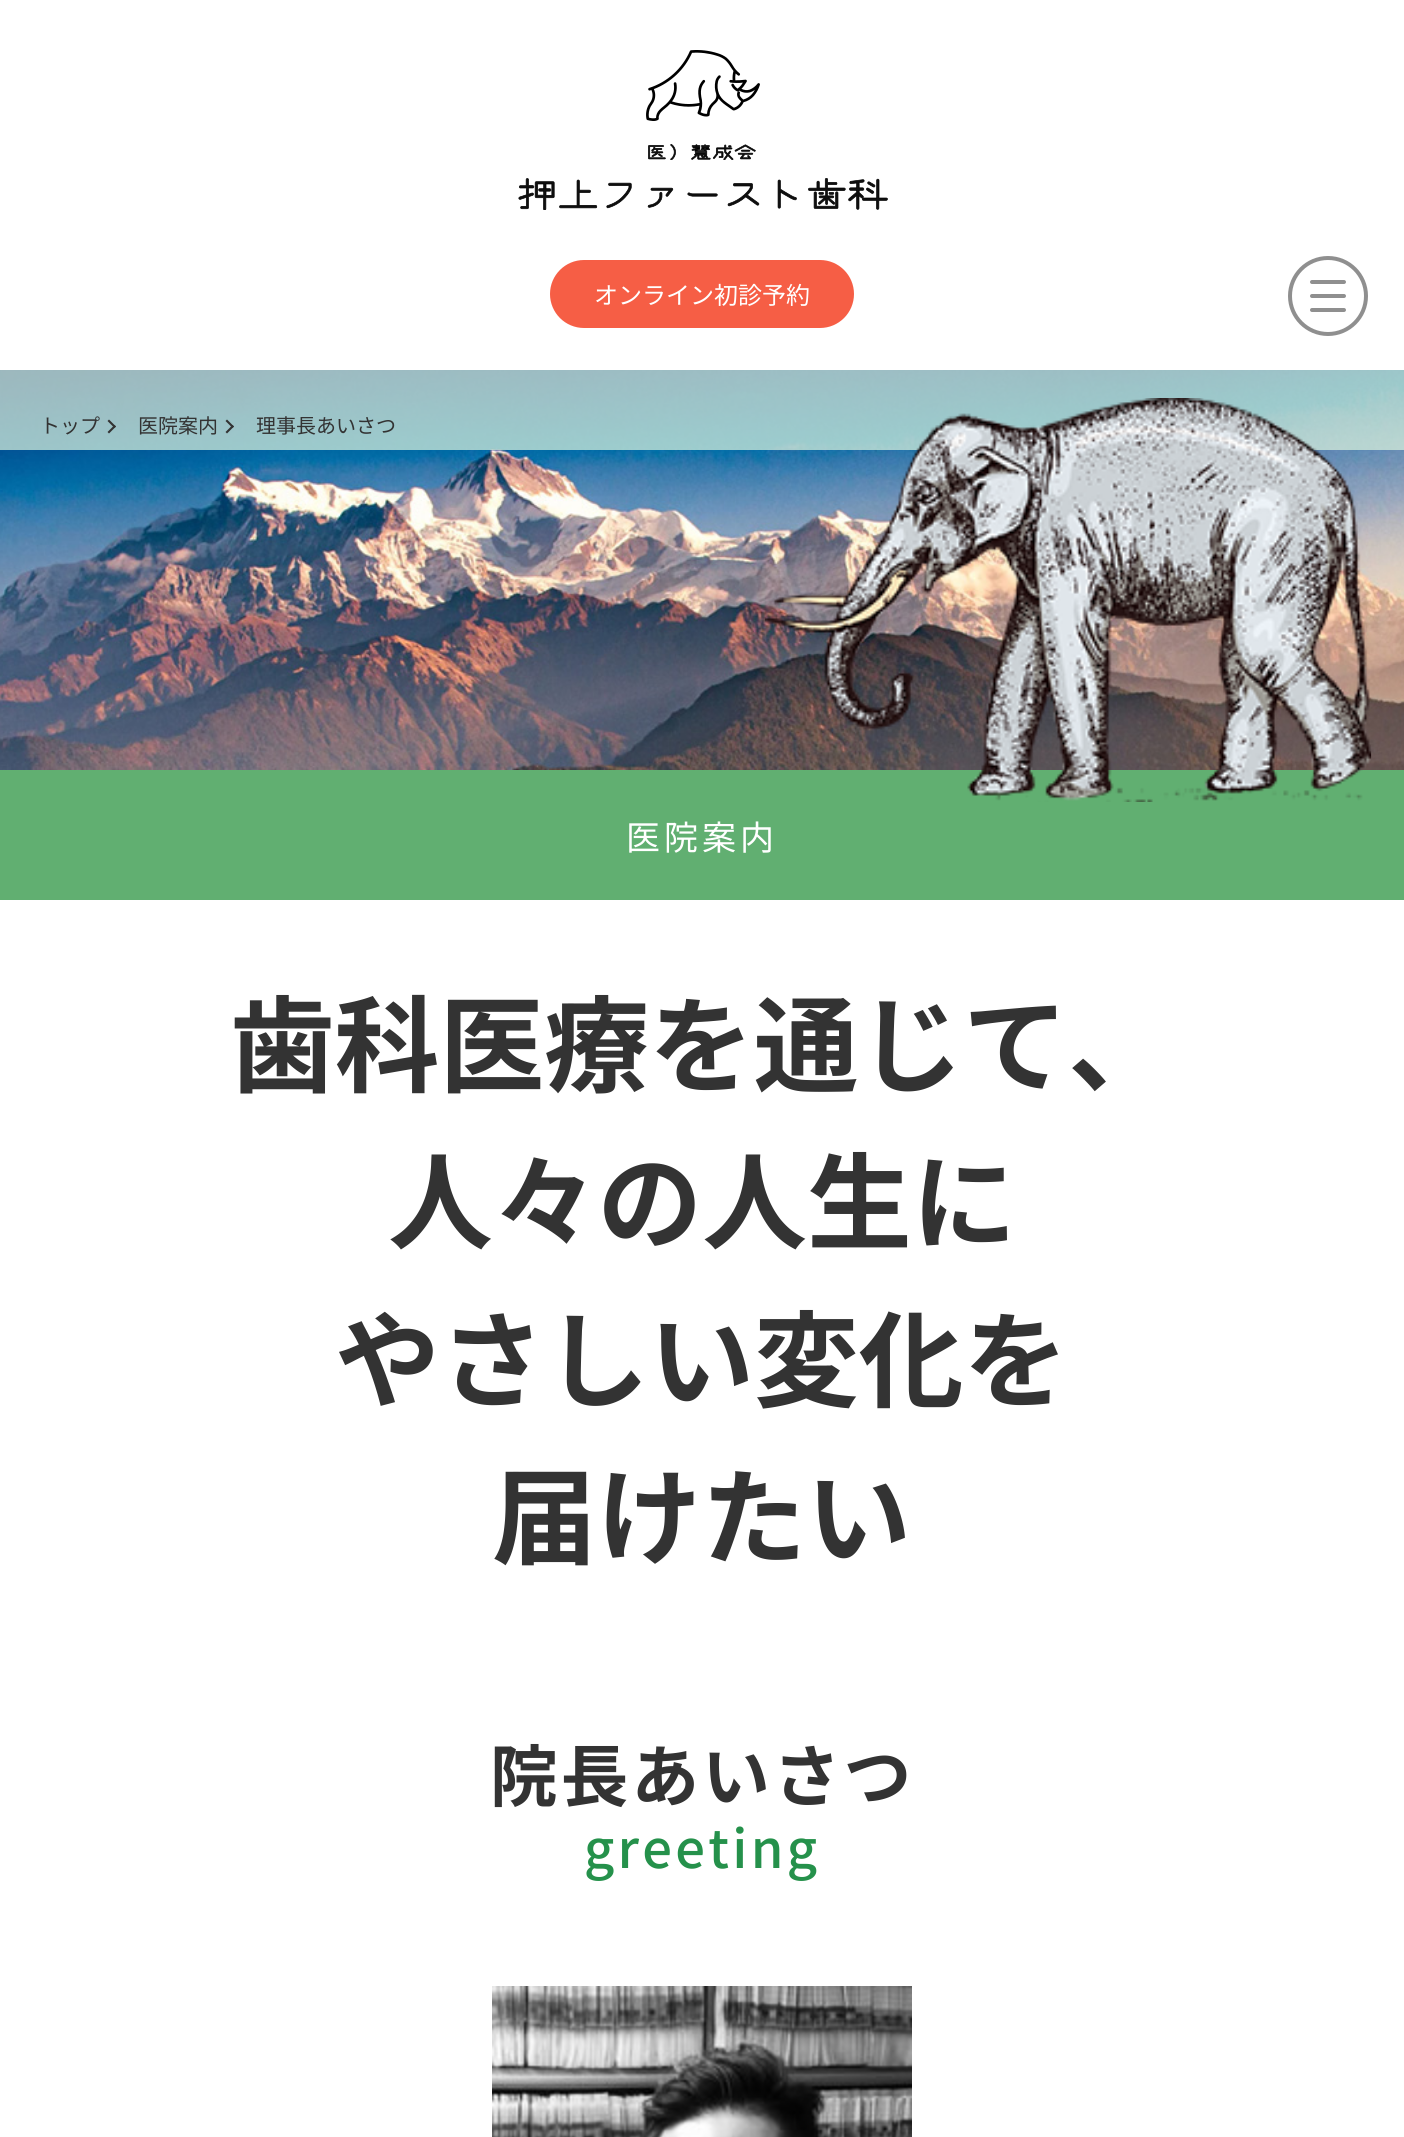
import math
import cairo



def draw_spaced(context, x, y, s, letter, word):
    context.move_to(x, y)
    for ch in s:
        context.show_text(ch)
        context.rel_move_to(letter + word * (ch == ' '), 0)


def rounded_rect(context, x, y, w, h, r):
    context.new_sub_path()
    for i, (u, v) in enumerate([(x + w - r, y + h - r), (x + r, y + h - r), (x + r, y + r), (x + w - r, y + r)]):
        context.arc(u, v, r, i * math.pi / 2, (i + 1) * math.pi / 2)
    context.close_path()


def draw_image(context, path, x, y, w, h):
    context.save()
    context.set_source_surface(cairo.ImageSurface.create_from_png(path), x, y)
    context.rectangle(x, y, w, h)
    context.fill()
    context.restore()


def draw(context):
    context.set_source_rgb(1, 1, 1)
    context.paint()
    draw_image(context, "images/1.png", 646, 50, 114, 71)
    draw_image(context, "images/2.png", 648, 144, 108, 16)
    draw_image(context, "images/3.png", 518, 178, 370, 32)
    context.set_source_rgb(246 / 255, 94 / 255, 69 / 255)
    rounded_rect(context, 552, 262, 300, 64, 32)
    context.fill_preserve()
    context.set_line_width(4)
    context.stroke()
    context.arc(1328, 296, 38, 0, 2 * math.pi)
    context.set_source_rgb(143 / 255, 143 / 255, 143 / 255)
    context.stroke()
    rounded_rect(context, 1310, 280, 36, 4, 2)
    context.fill()
    rounded_rect(context, 1310, 294, 36, 4, 2)
    context.fill()
    rounded_rect(context, 1310, 308, 36, 4, 2)
    context.fill()
    draw_image(context, "images/4.png", 0, 370, 1404, 400)
    context.set_source_rgba(222 / 255, 246 / 255, 222 / 255, 0.7)
    context.rectangle(0, 370, 1404, 80)
    context.fill()
    context.set_source_rgb(51 / 255, 51 / 255, 51 / 255)
    context.new_path()
    context.move_to(109, 419.5)
    context.line_to(116, 426.5)
    context.line_to(114.5, 428)
    context.line_to(107.5, 421)
    context.close_path()
    context.fill()
    context.new_path()
    context.move_to(114.5, 425)
    context.line_to(116, 426.5)
    context.line_to(109, 433.5)
    context.line_to(107.5, 432)
    context.close_path()
    context.fill()
    context.new_path()
    context.move_to(227, 419.5)
    context.line_to(234, 426.5)
    context.line_to(232.5, 428)
    context.line_to(225.5, 421)
    context.close_path()
    context.fill()
    context.new_path()
    context.move_to(232.5, 425)
    context.line_to(234, 426.5)
    context.line_to(227, 433.5)
    context.line_to(225.5, 432)
    context.close_path()
    context.fill()
    context.set_source_rgb(97 / 255, 175 / 255, 113 / 255)
    context.rectangle(0, 770, 1404, 130)
    context.fill()
    draw_image(context, "images/5.png", 765, 398, 607, 404)
    draw_image(context, "images/6.png", 492, 1986, 420, 151)
    context.select_font_face("Noto Sans JP")
    context.set_font_size(24)
    context.set_source_rgb(1, 1, 1)
    context.move_to(594, 304)
    context.show_text("オンライン初診予約")
    context.set_font_size(20)
    context.set_source_rgb(51 / 255, 51 / 255, 51 / 255)
    context.move_to(40, 433)
    context.show_text("トップ")
    context.move_to(138, 433)
    context.show_text("医院案内")
    context.move_to(256, 433)
    context.show_text("理事長あいさつ")
    context.set_font_size(34)
    context.set_source_rgb(1, 1, 1)
    draw_spaced(context, 626, 850, "医院案内", 4, 0)
    context.select_font_face("Noto Sans JP", cairo.FontSlant.NORMAL, cairo.FontWeight.BOLD)
    context.set_font_size(104.75)
    context.set_source_rgb(51 / 255, 51 / 255, 51 / 255)
    context.move_to(230, 1084)
    context.show_text("歯科医療を通じて、")
    context.move_to(388, 1241)
    context.show_text("人々の人生に")
    context.move_to(335, 1399)
    context.show_text("やさしい変化を")
    context.move_to(492, 1556)
    context.show_text("届けたい")
    context.set_font_size(67.5)
    draw_spaced(context, 490, 1801, "院長あいさつ", 3.25, 0)
    context.select_font_face("Noto Sans JP Medium")
    context.set_font_size(52.5)
    context.set_source_rgb(37 / 255, 145 / 255, 75 / 255)
    draw_spaced(context, 584, 1868, "greeting", 3.25, 0)


surface = cairo.ImageSurface(cairo.Format.RGB24, 1404, 2137)
context = cairo.Context(surface)
options = cairo.FontOptions()
options.set_hint_metrics(cairo.HintMetrics.OFF)
options.set_hint_style(cairo.HintStyle.NONE)
context.set_font_options(options)
context.set_miter_limit(4)
draw(context)
surface.write_to_png("out.png")
